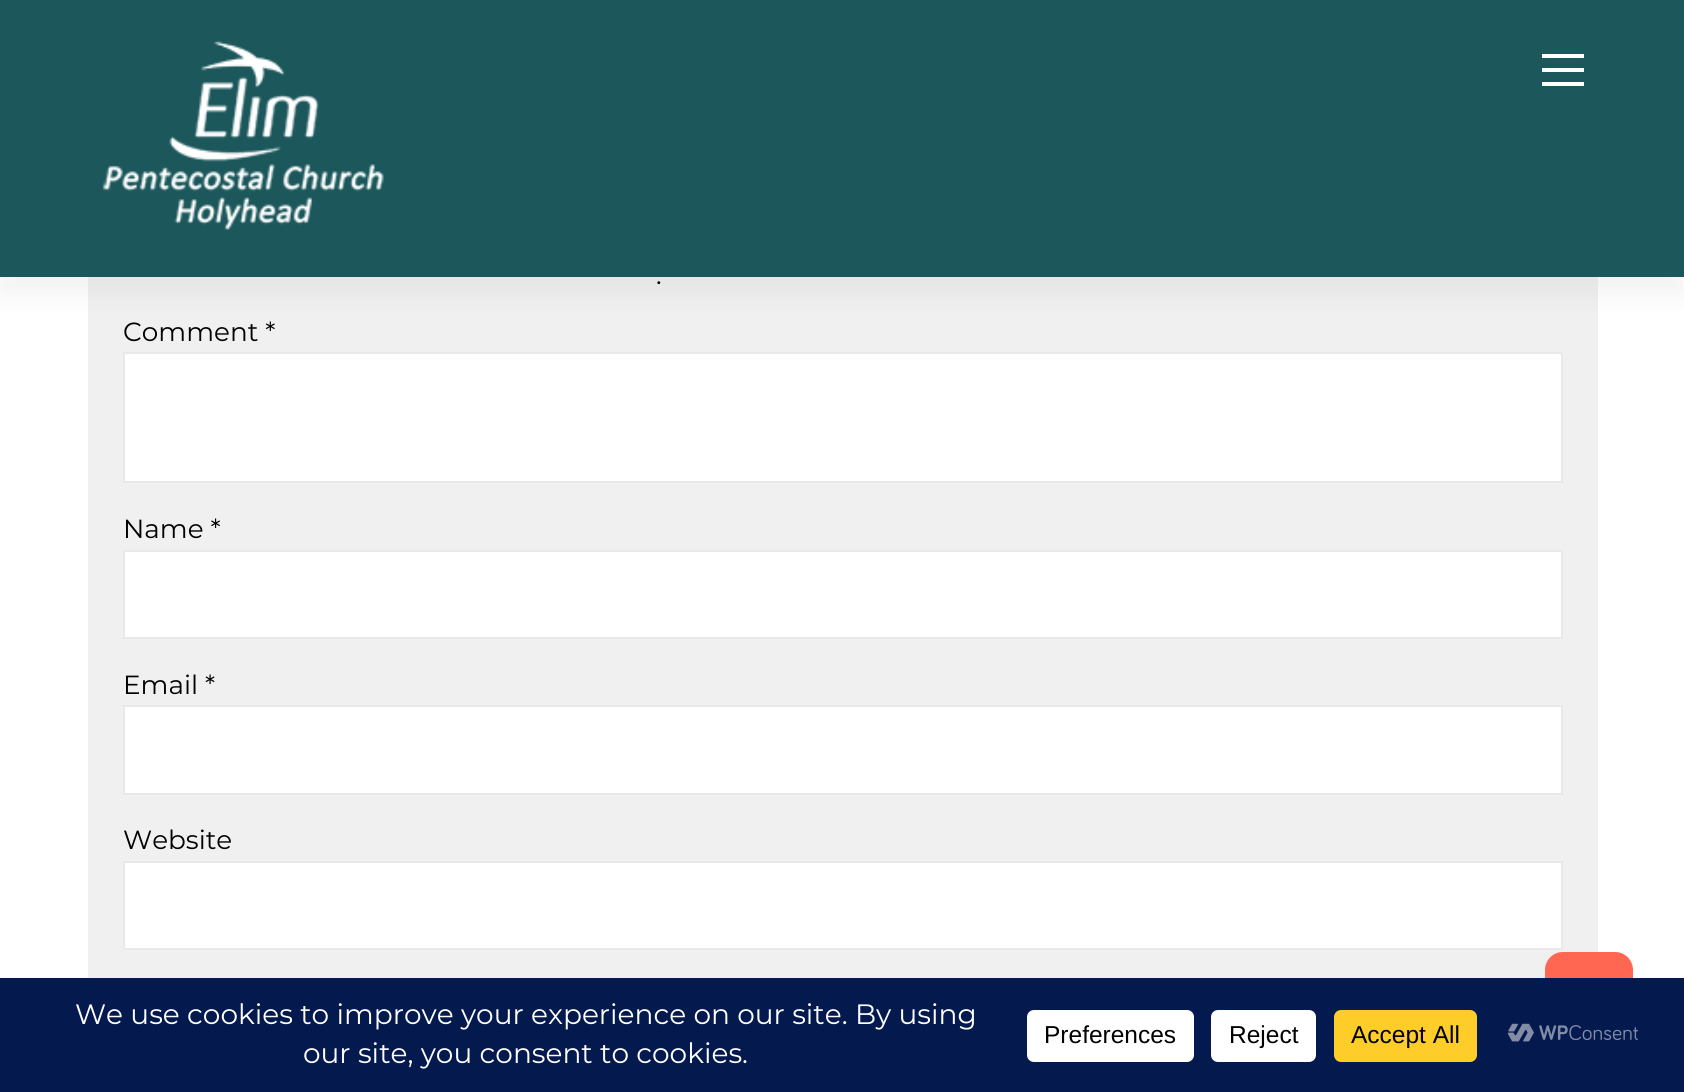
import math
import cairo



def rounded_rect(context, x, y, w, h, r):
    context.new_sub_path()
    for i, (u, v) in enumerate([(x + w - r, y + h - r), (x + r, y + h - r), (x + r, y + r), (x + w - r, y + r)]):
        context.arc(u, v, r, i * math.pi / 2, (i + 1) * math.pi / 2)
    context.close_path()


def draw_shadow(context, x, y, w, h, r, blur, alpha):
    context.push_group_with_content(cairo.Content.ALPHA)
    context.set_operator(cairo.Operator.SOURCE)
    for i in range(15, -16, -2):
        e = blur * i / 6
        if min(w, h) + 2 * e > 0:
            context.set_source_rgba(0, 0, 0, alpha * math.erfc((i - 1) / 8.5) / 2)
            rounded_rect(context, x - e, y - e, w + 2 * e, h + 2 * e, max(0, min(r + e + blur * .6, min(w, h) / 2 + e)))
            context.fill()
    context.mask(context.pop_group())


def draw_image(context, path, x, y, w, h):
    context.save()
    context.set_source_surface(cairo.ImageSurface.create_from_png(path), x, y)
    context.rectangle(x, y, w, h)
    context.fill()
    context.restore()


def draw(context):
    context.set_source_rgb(1, 1, 1)
    context.paint()
    context.set_source_rgb(240 / 255, 240 / 255, 240 / 255)
    context.rectangle(88, 277, 1510, 701)
    context.fill()
    context.set_source_rgb(0, 0, 0)
    draw_shadow(context, 0, 16, 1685, 278, 0, 13, 0.05)
    context.set_source_rgb(27 / 255, 87 / 255, 91 / 255)
    context.rectangle(0, 0, 1684, 277)
    context.fill()
    draw_image(context, "images/1.png", 102, 41, 282, 189)
    context.set_source_rgb(1, 1, 1)
    context.rectangle(1542, 54, 42, 4)
    context.fill()
    context.rectangle(1542, 68, 42, 4)
    context.fill()
    context.rectangle(1542, 82, 42, 4)
    context.fill()
    context.rectangle(124, 353, 1438, 129)
    context.fill_preserve()
    context.set_source_rgb(233 / 255, 233 / 255, 234 / 255)
    context.stroke()
    context.set_source_rgb(1, 1, 1)
    context.rectangle(124, 551, 1438, 87)
    context.fill_preserve()
    context.set_source_rgb(233 / 255, 233 / 255, 234 / 255)
    context.stroke()
    context.set_source_rgb(1, 1, 1)
    context.rectangle(124, 706, 1438, 88)
    context.fill_preserve()
    context.set_source_rgb(233 / 255, 233 / 255, 234 / 255)
    context.stroke()
    context.set_source_rgb(1, 1, 1)
    context.rectangle(124, 862, 1438, 87)
    context.fill_preserve()
    context.set_source_rgb(233 / 255, 233 / 255, 234 / 255)
    context.stroke()
    context.set_source_rgb(1, 103 / 255, 82 / 255)
    rounded_rect(context, 1545, 952, 88, 88, 18)
    context.fill()
    context.set_source_rgb(4 / 255, 25 / 255, 78 / 255)
    context.rectangle(0, 978, 1684, 114)
    context.fill()
    context.set_source_rgb(1, 1, 1)
    rounded_rect(context, 1027, 1010, 167, 52, 7)
    context.fill()
    rounded_rect(context, 1211, 1010, 105, 52, 7)
    context.fill()
    context.set_source_rgb(1, 205 / 255, 42 / 255)
    rounded_rect(context, 1334, 1010, 143, 52, 7)
    context.fill()
    draw_image(context, "images/2.png", 1507, 1023, 131, 19)
    context.select_font_face("Montserrat")
    context.set_font_size(26.25)
    context.set_source_rgb(0, 0, 0)
    context.move_to(656, 284)
    context.show_text(".")
    context.move_to(123, 341)
    context.show_text("Comment *")
    context.move_to(123, 538)
    context.show_text("Name *")
    context.move_to(123, 694)
    context.show_text("Email *")
    context.move_to(123, 849)
    context.show_text("Website")
    context.set_font_size(28)
    context.set_source_rgb(1, 1, 1)
    context.move_to(75, 1024)
    context.show_text("We use cookies to improve your experience on our site. By using")
    context.move_to(303, 1063)
    context.show_text("our site, you consent to cookies.")
    context.select_font_face("Liberation Sans")
    context.set_font_size(24.5)
    context.set_source_rgb(0, 0, 0)
    context.move_to(1044, 1043)
    context.show_text("Preferences")
    context.move_to(1229, 1043)
    context.show_text("Reject")
    context.move_to(1351, 1043)
    context.show_text("Accept All")


surface = cairo.ImageSurface(cairo.Format.RGB24, 1684, 1092)
context = cairo.Context(surface)
options = cairo.FontOptions()
options.set_hint_metrics(cairo.HintMetrics.OFF)
options.set_hint_style(cairo.HintStyle.NONE)
context.set_font_options(options)
context.set_miter_limit(4)
draw(context)
surface.write_to_png("out.png")
